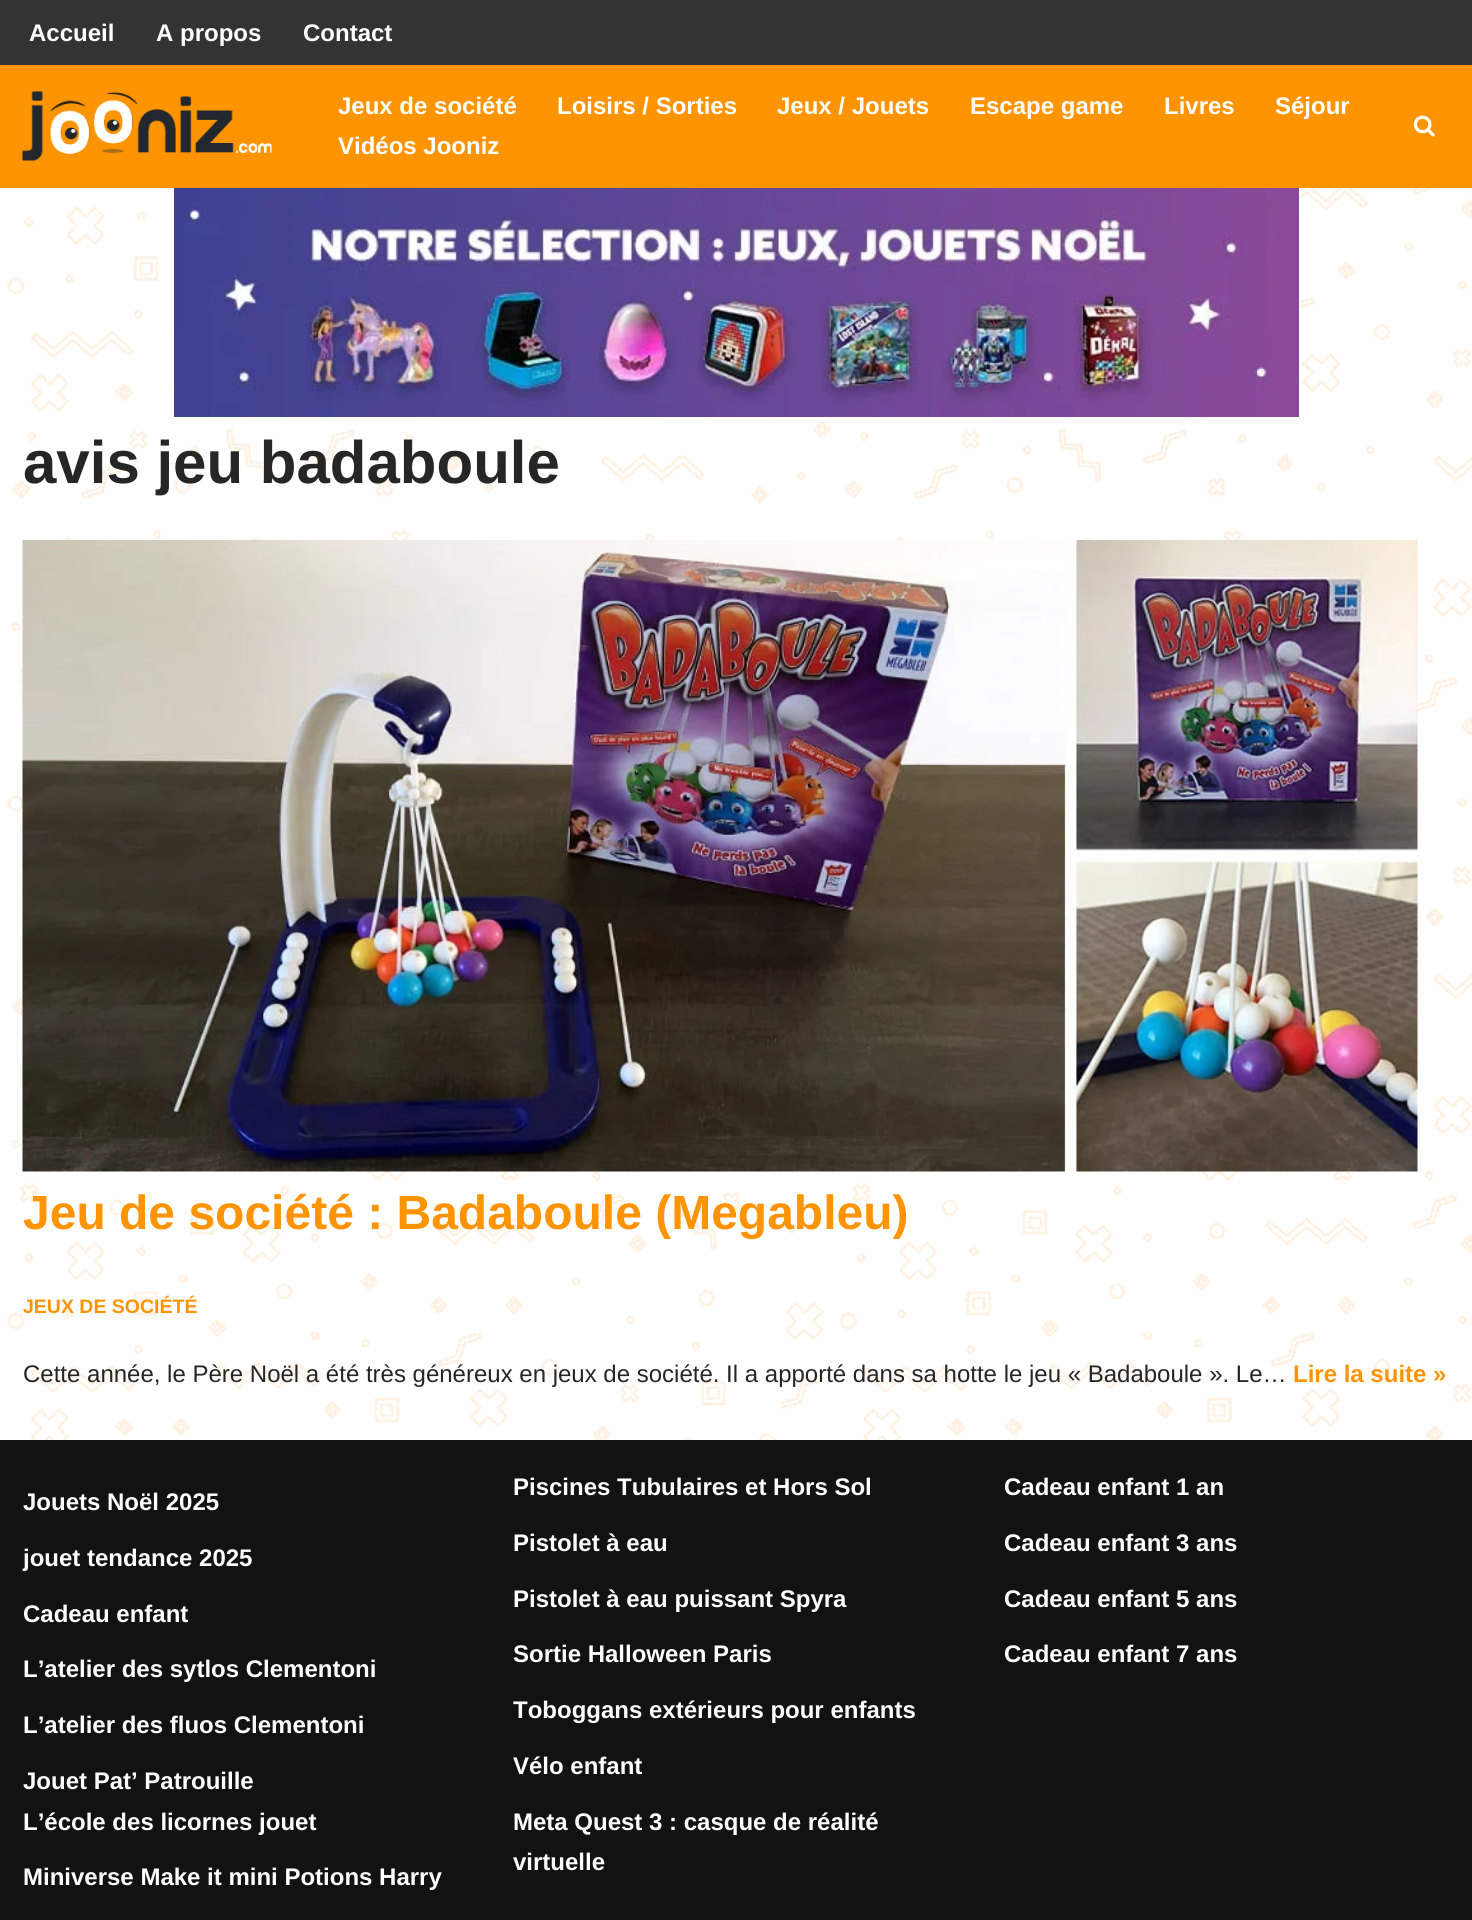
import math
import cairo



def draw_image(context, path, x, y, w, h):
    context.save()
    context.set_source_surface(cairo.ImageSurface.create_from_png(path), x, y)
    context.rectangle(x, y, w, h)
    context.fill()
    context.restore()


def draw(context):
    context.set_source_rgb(1, 1, 1)
    context.paint()
    draw_image(context, "images/1.png", 7, 188, 1465, 1252)
    context.set_source_rgb(51 / 255, 51 / 255, 51 / 255)
    context.rectangle(0, 0, 1472, 65)
    context.fill()
    context.set_source_rgb(254 / 255, 148 / 255, 2 / 255)
    context.rectangle(0, 65, 1472, 123)
    context.fill()
    draw_image(context, "images/2.png", 22, 91, 250, 70)
    draw_image(context, "images/3.png", 1413, 115, 22, 22)
    draw_image(context, "images/4.png", 174, 188, 1125, 229)
    draw_image(context, "images/5.png", 22, 540, 1396, 632)
    context.set_source_rgb(18 / 255, 18 / 255, 18 / 255)
    context.rectangle(0, 1440, 1472, 480)
    context.fill()
    context.select_font_face("Liberation Sans", cairo.FontSlant.NORMAL, cairo.FontWeight.BOLD)
    context.set_font_size(24)
    context.set_source_rgb(1, 1, 1)
    context.move_to(29, 41)
    context.show_text("Accueil")
    context.move_to(156, 41)
    context.show_text("A propos")
    context.move_to(303, 41)
    context.show_text("Contact")
    context.move_to(338, 114)
    context.show_text("Jeux de société")
    context.move_to(557, 114)
    context.show_text("Loisirs / Sorties")
    context.move_to(777, 114)
    context.show_text("Jeux / Jouets")
    context.move_to(970, 114)
    context.show_text("Escape game")
    context.move_to(1164, 114)
    context.show_text("Livres")
    context.move_to(1275, 114)
    context.show_text("Séjour")
    context.move_to(338, 154)
    context.show_text("Vidéos Jooniz")
    context.set_font_size(60)
    context.set_source_rgb(39 / 255, 38 / 255, 38 / 255)
    context.move_to(23, 483)
    context.show_text("avis jeu badaboule")
    context.set_font_size(48)
    context.set_source_rgb(254 / 255, 148 / 255, 2 / 255)
    context.move_to(23, 1229)
    context.show_text("Jeu de société : Badaboule (Megableu)")
    context.set_font_size(19.5)
    context.move_to(23, 1313)
    context.show_text("JEUX DE SOCIÉTÉ")
    context.select_font_face("Liberation Sans")
    context.set_font_size(24)
    context.set_source_rgb(39 / 255, 38 / 255, 38 / 255)
    context.move_to(23, 1382)
    context.show_text("Cette année, le Père Noël a été très généreux en jeux de société. Il a apporté dans sa hotte le jeu « Badaboule ». Le…")
    context.select_font_face("Liberation Sans", cairo.FontSlant.NORMAL, cairo.FontWeight.BOLD)
    context.set_source_rgb(254 / 255, 148 / 255, 2 / 255)
    context.move_to(1293, 1382)
    context.show_text("Lire la suite »")
    context.set_source_rgb(1, 1, 1)
    context.move_to(23, 1510)
    context.show_text("Jouets Noël 2025")
    context.move_to(23, 1566)
    context.show_text("jouet tendance 2025")
    context.move_to(23, 1622)
    context.show_text("Cadeau enfant")
    context.move_to(23, 1677)
    context.show_text("L’atelier des sytlos Clementoni")
    context.move_to(23, 1733)
    context.show_text("L’atelier des fluos Clementoni")
    context.move_to(23, 1789)
    context.show_text("Jouet Pat’ Patrouille")
    context.move_to(23, 1830)
    context.show_text("L’école des licornes jouet")
    context.move_to(23, 1885)
    context.show_text("Miniverse Make it mini Potions Harry")
    context.move_to(513, 1495)
    context.show_text("Piscines Tubulaires et Hors Sol")
    context.move_to(513, 1551)
    context.show_text("Pistolet à eau")
    context.move_to(513, 1607)
    context.show_text("Pistolet à eau puissant Spyra")
    context.move_to(513, 1662)
    context.show_text("Sortie Halloween Paris")
    context.move_to(513, 1718)
    context.show_text("Toboggans extérieurs pour enfants")
    context.move_to(513, 1774)
    context.show_text("Vélo enfant")
    context.move_to(513, 1830)
    context.show_text("Meta Quest 3 : casque de réalité")
    context.move_to(513, 1870)
    context.show_text("virtuelle")
    context.move_to(1004, 1495)
    context.show_text("Cadeau enfant 1 an")
    context.move_to(1004, 1551)
    context.show_text("Cadeau enfant 3 ans")
    context.move_to(1004, 1607)
    context.show_text("Cadeau enfant 5 ans")
    context.move_to(1004, 1662)
    context.show_text("Cadeau enfant 7 ans")


surface = cairo.ImageSurface(cairo.Format.RGB24, 1472, 1920)
context = cairo.Context(surface)
options = cairo.FontOptions()
options.set_hint_metrics(cairo.HintMetrics.OFF)
options.set_hint_style(cairo.HintStyle.NONE)
context.set_font_options(options)
context.set_miter_limit(4)
draw(context)
surface.write_to_png("out.png")
